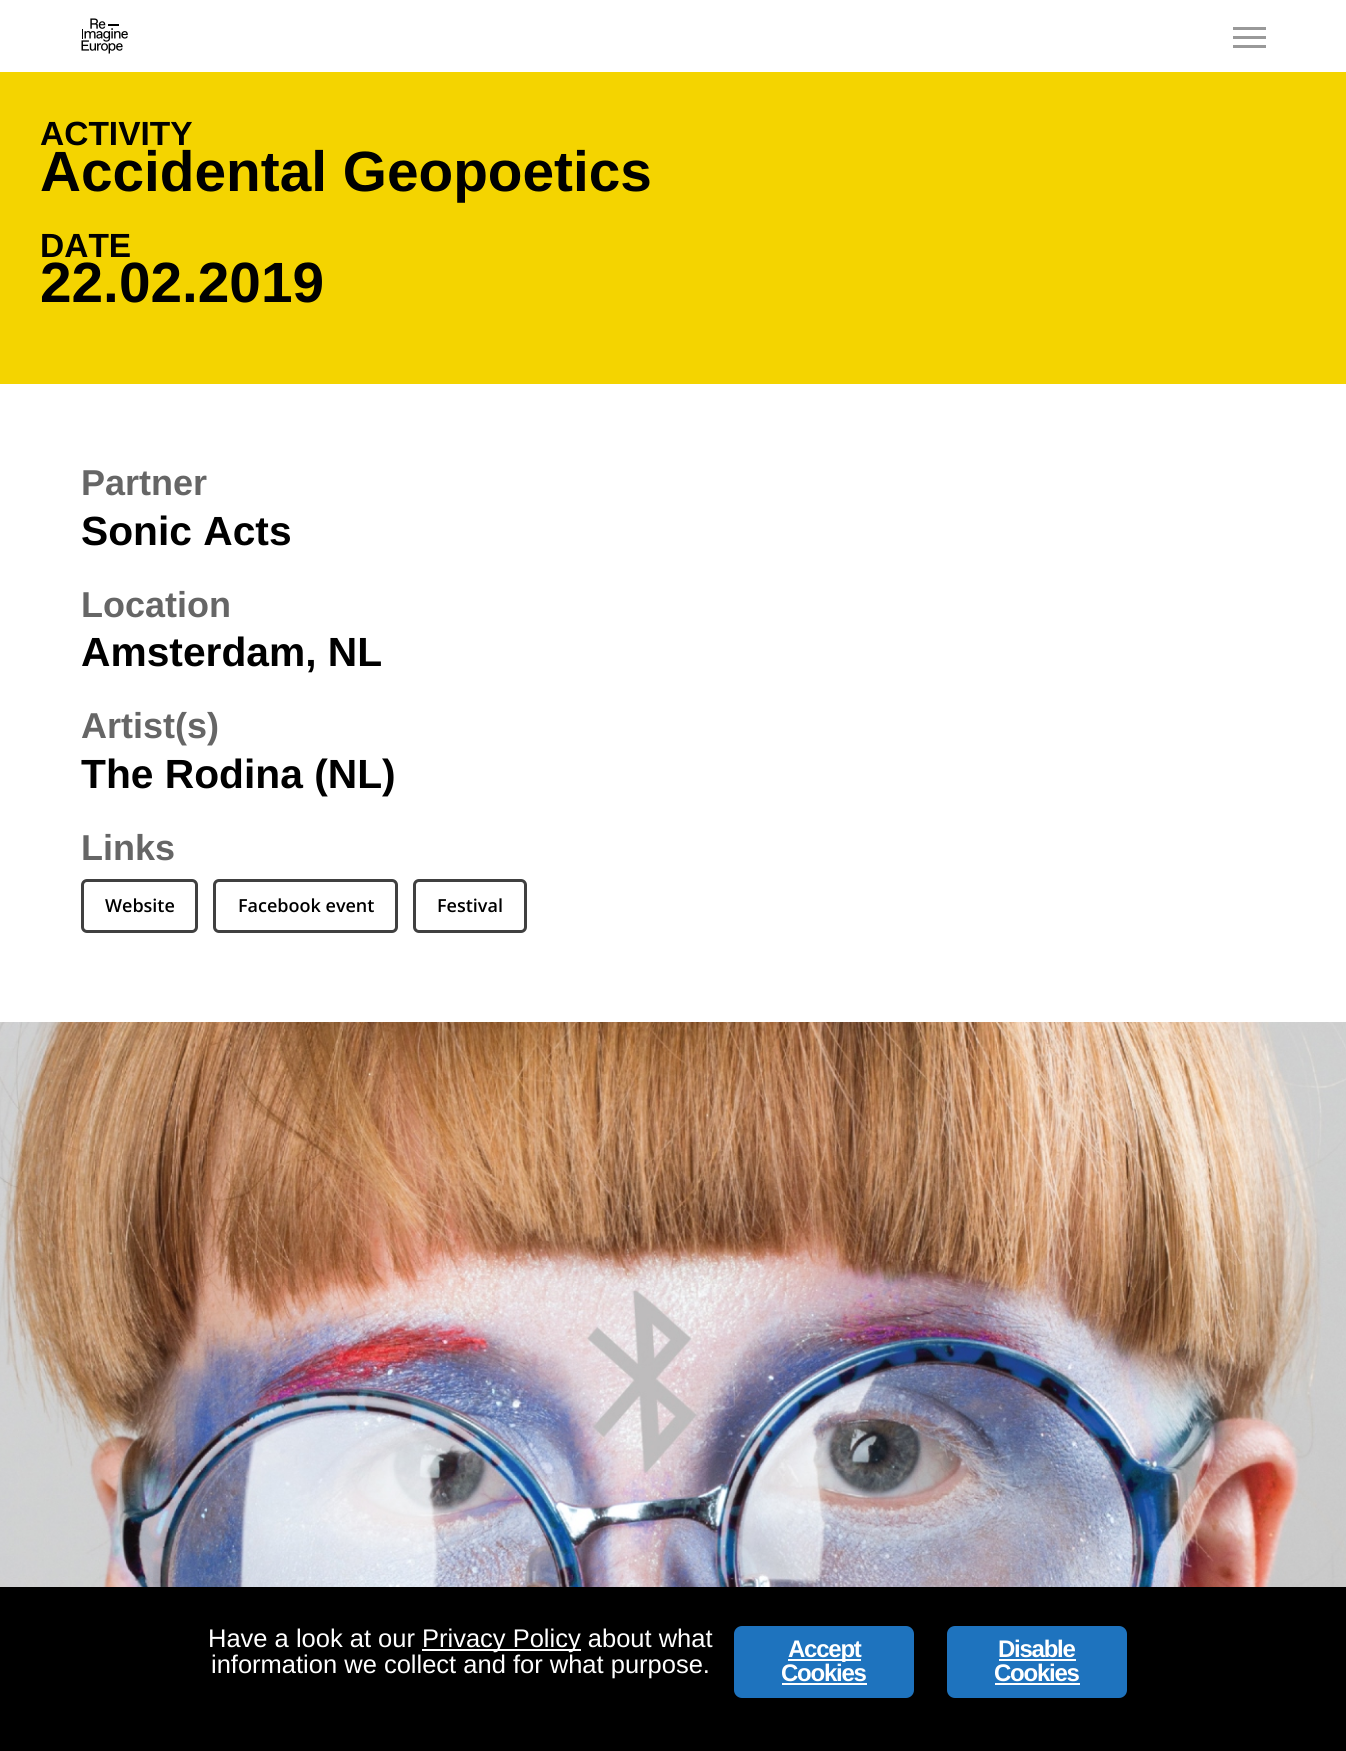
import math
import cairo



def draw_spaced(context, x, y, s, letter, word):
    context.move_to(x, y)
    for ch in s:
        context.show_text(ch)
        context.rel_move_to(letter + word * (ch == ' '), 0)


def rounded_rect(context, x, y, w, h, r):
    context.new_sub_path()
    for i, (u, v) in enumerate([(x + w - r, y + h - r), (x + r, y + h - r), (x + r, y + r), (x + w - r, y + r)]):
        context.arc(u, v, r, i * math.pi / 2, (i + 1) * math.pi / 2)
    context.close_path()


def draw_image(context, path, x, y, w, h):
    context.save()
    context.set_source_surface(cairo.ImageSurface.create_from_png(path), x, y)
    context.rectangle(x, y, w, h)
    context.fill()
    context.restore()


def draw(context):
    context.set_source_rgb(1, 1, 1)
    context.paint()
    draw_image(context, "images/1.png", 81, 18, 47, 36)
    context.set_source_rgb(153 / 255, 153 / 255, 153 / 255)
    context.rectangle(1233, 27, 33, 3)
    context.fill()
    context.rectangle(1233, 45, 33, 3)
    context.fill()
    context.rectangle(1233, 36, 33, 3)
    context.fill()
    context.set_source_rgb(244 / 255, 212 / 255, 0)
    context.rectangle(0, 72, 1346, 312)
    context.fill()
    rounded_rect(context, 82.5, 880.5, 114, 51, 4.5)
    context.set_source_rgb(64 / 255, 64 / 255, 64 / 255)
    context.set_line_width(3)
    context.stroke()
    rounded_rect(context, 214.5, 880.5, 182, 51, 4.5)
    context.stroke()
    rounded_rect(context, 414.5, 880.5, 111, 51, 4.5)
    context.stroke()
    draw_image(context, "images/2.png", 0, 1022, 1346, 565)
    context.set_source_rgb(0, 0, 0)
    context.rectangle(0, 1587, 1346, 164)
    context.fill()
    context.set_source_rgb(1, 1, 1)
    context.rectangle(422, 1649, 159, 2)
    context.fill()
    context.set_source_rgb(30 / 255, 115 / 255, 190 / 255)
    rounded_rect(context, 734, 1626, 180, 72, 8)
    context.fill()
    context.set_source_rgb(1, 1, 1)
    context.rectangle(788, 1659, 73, 2)
    context.fill()
    context.rectangle(782, 1683, 85, 2)
    context.fill()
    context.set_source_rgb(30 / 255, 115 / 255, 190 / 255)
    rounded_rect(context, 947, 1626, 180, 72, 8)
    context.fill()
    context.set_source_rgb(1, 1, 1)
    context.rectangle(999, 1659, 77, 2)
    context.fill()
    context.rectangle(995, 1683, 85, 2)
    context.fill()
    context.select_font_face("Liberation Sans", cairo.FontSlant.NORMAL, cairo.FontWeight.BOLD)
    context.set_font_size(33.5)
    context.set_source_rgb(0, 0, 0)
    context.move_to(40, 145)
    context.show_text("ACTIVITY")
    context.set_font_size(56.75)
    context.move_to(40, 191)
    context.show_text("Accidental Geopoetics")
    context.set_font_size(33.5)
    context.move_to(40, 257)
    context.show_text("DATE")
    context.set_font_size(56.75)
    context.move_to(40, 302)
    context.show_text("22.02.2019")
    context.set_font_size(36)
    context.set_source_rgb(102 / 255, 102 / 255, 102 / 255)
    context.move_to(81, 495)
    context.show_text("Partner")
    context.set_font_size(40.75)
    context.set_source_rgb(0, 0, 0)
    context.move_to(81, 545)
    context.show_text("Sonic Acts")
    context.set_font_size(36)
    context.set_source_rgb(102 / 255, 102 / 255, 102 / 255)
    context.move_to(81, 617)
    context.show_text("Location")
    context.set_font_size(40.75)
    context.set_source_rgb(0, 0, 0)
    context.move_to(81, 666)
    context.show_text("Amsterdam, NL")
    context.set_font_size(36)
    context.set_source_rgb(102 / 255, 102 / 255, 102 / 255)
    context.move_to(81, 738)
    context.show_text("Artist(s)")
    context.set_font_size(40.75)
    context.set_source_rgb(0, 0, 0)
    context.move_to(81, 788)
    context.show_text("The Rodina (NL)")
    context.set_font_size(36)
    context.set_source_rgb(102 / 255, 102 / 255, 102 / 255)
    context.move_to(81, 860)
    context.show_text("Links")
    context.select_font_face("Open Sans SemiBold")
    context.set_font_size(18)
    context.set_source_rgb(0, 0, 0)
    context.move_to(105, 912)
    context.show_text("Website")
    context.move_to(238, 912)
    context.show_text("Facebook event")
    context.move_to(437, 912)
    context.show_text("Festival")
    context.select_font_face("Liberation Sans")
    context.set_font_size(25.5)
    context.set_source_rgb(1, 1, 1)
    context.move_to(208, 1647)
    context.show_text("Have a look at our")
    context.move_to(422, 1647)
    context.show_text("Privacy Policy about what")
    context.move_to(211, 1673)
    context.show_text("information we collect and for what purpose.")
    context.select_font_face("Liberation Sans", cairo.FontSlant.NORMAL, cairo.FontWeight.BOLD)
    context.set_font_size(24)
    draw_spaced(context, 788, 1657, "Accept", -1.25, 0)
    draw_spaced(context, 781, 1681, "Cookies", -1.25, 0)
    draw_spaced(context, 998, 1657, "Disable", -1.25, 0)
    draw_spaced(context, 994, 1681, "Cookies", -1.25, 0)


surface = cairo.ImageSurface(cairo.Format.RGB24, 1346, 1751)
context = cairo.Context(surface)
options = cairo.FontOptions()
options.set_hint_metrics(cairo.HintMetrics.OFF)
options.set_hint_style(cairo.HintStyle.NONE)
context.set_font_options(options)
context.set_miter_limit(4)
draw(context)
surface.write_to_png("out.png")
